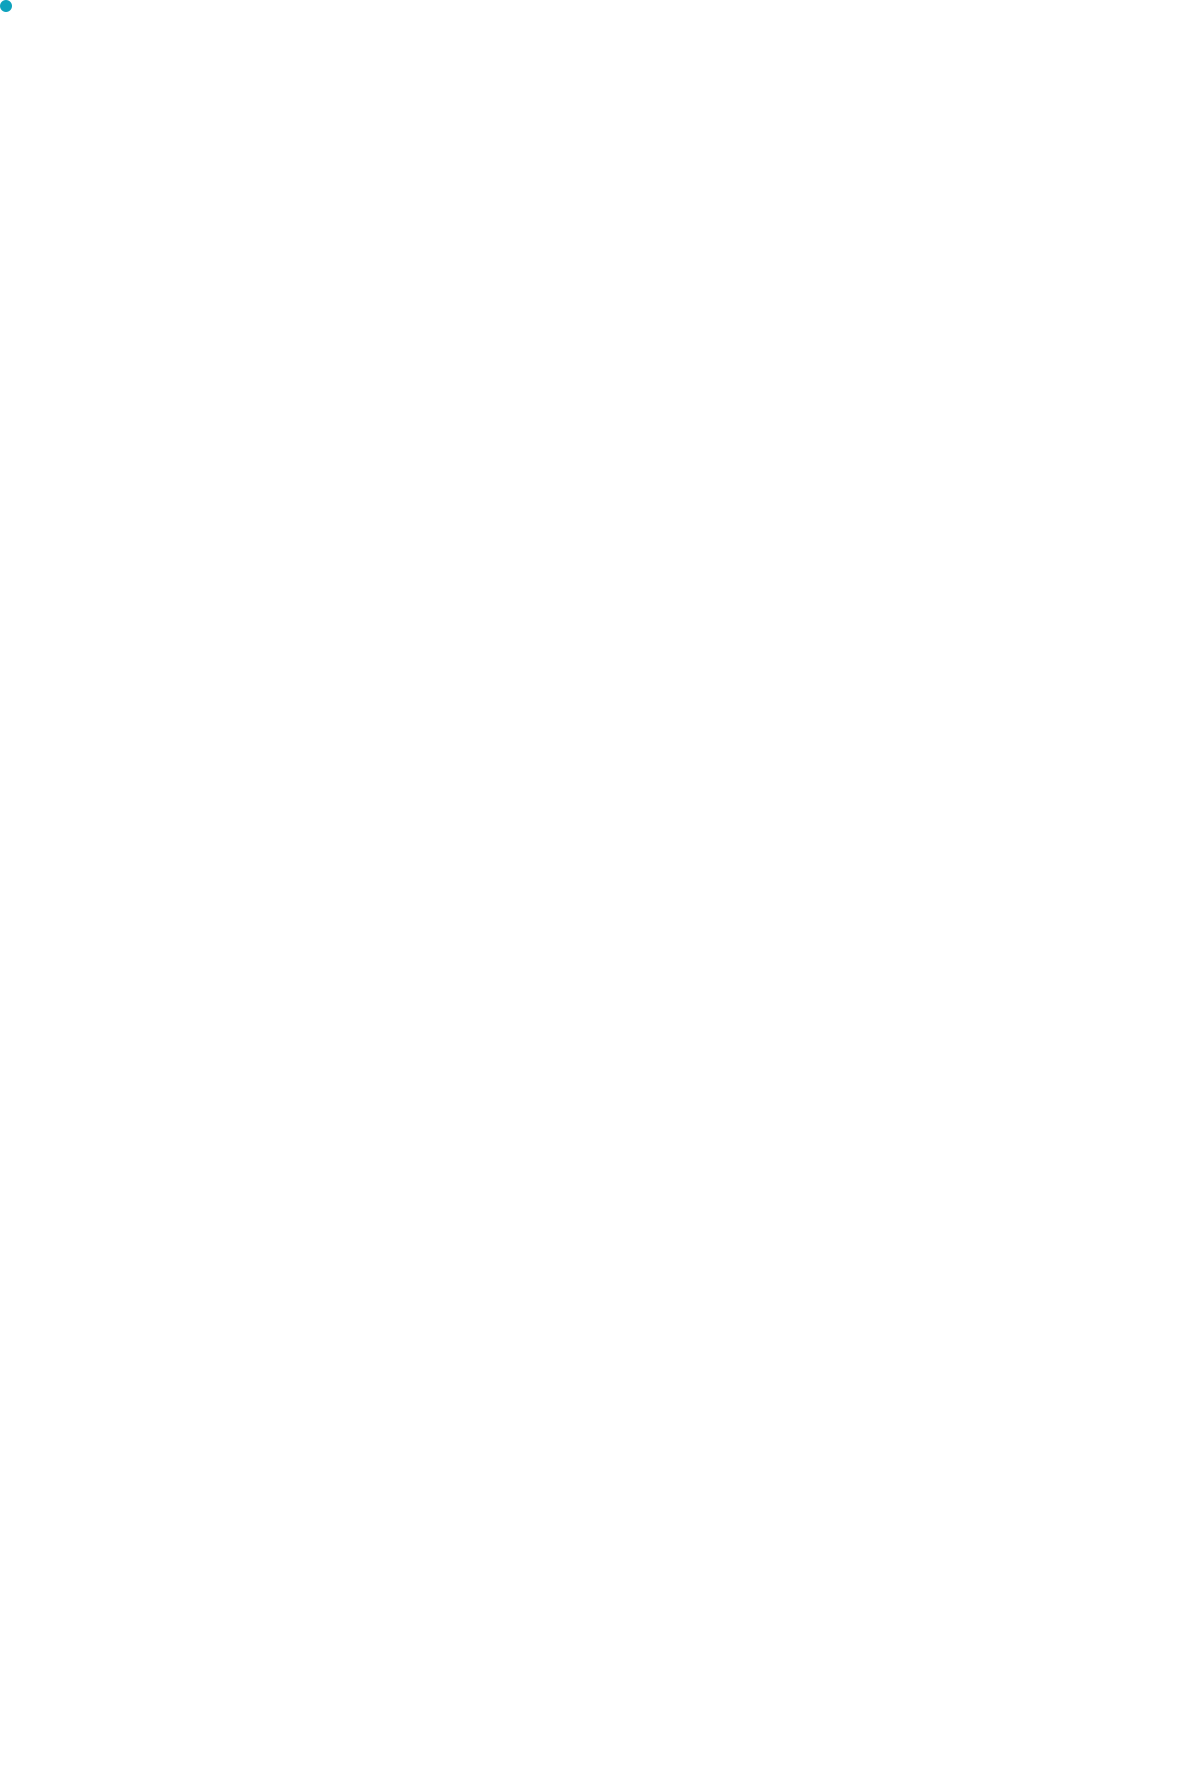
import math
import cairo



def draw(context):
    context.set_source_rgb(1, 1, 1)
    context.paint()
    context.set_source_rgb(14 / 255, 162 / 255, 189 / 255)
    context.arc(6, 6, 6, 0, 2 * math.pi)
    context.fill()


surface = cairo.ImageSurface(cairo.Format.RGB24, 1179, 1773)
context = cairo.Context(surface)
options = cairo.FontOptions()
options.set_hint_metrics(cairo.HintMetrics.OFF)
options.set_hint_style(cairo.HintStyle.NONE)
context.set_font_options(options)
context.set_miter_limit(4)
draw(context)
surface.write_to_png("out.png")
